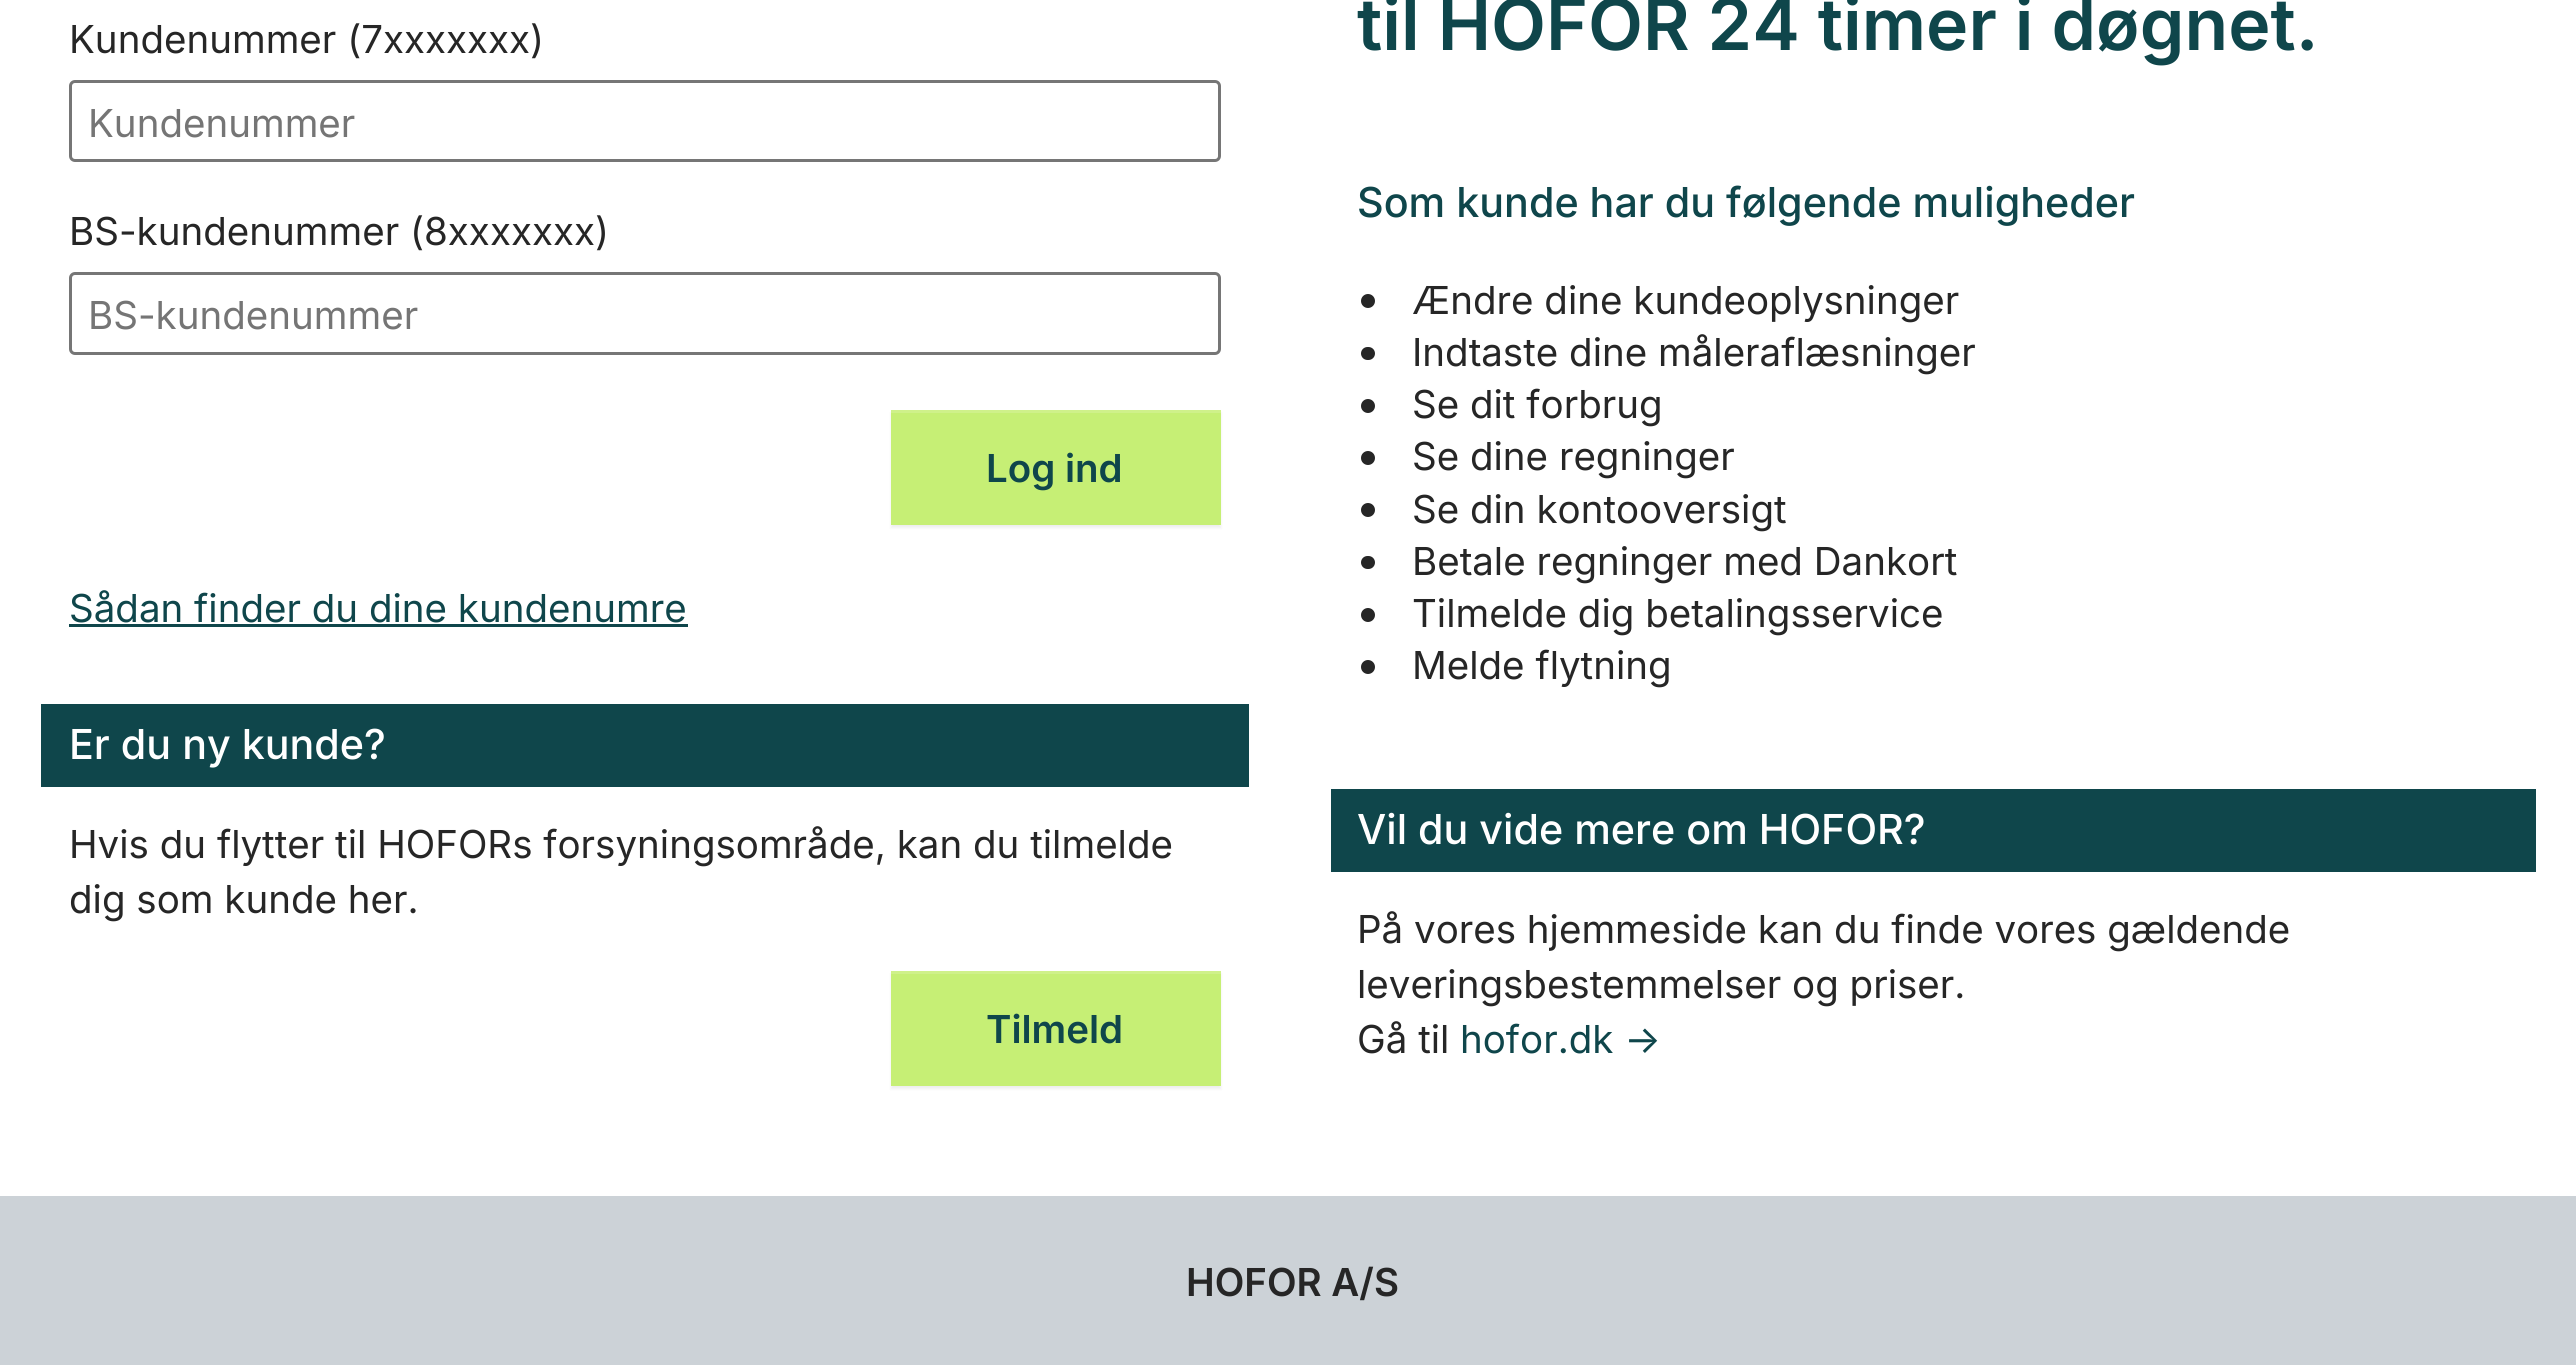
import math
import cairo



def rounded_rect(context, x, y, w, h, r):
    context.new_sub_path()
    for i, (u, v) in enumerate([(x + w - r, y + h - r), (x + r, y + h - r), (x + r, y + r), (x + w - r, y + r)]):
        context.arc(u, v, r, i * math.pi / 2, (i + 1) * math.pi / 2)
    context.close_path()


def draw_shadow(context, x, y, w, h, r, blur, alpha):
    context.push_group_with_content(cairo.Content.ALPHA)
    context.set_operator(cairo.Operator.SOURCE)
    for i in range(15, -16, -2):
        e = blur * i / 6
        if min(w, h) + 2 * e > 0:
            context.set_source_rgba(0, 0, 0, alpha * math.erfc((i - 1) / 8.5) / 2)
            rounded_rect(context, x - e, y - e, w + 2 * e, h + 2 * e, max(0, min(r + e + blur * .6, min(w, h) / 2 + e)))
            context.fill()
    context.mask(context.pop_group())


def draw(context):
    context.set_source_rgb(1, 1, 1)
    context.paint()
    rounded_rect(context, 70.5, 81.5, 1149, 79, 4.5)
    context.set_source_rgb(118 / 255, 118 / 255, 118 / 255)
    context.set_line_width(3)
    context.stroke()
    rounded_rect(context, 70.5, 273.5, 1149, 80, 4.5)
    context.stroke()
    context.set_source_rgb(0, 0, 0)
    draw_shadow(context, 891, 413, 330, 115, 0, 1.5, 0.07)
    context.set_source_rgb(198 / 255, 239 / 255, 117 / 255)
    context.rectangle(891, 413, 330, 112)
    context.fill()
    context.set_source_rgb(207 / 255, 241 / 255, 138 / 255)
    context.rectangle(891, 410, 330, 3)
    context.fill()
    context.set_source_rgb(15 / 255, 70 / 255, 75 / 255)
    context.rectangle(69, 624, 619, 3)
    context.fill()
    context.rectangle(41, 704, 1208, 83)
    context.fill()
    context.set_source_rgb(0, 0, 0)
    draw_shadow(context, 891, 974, 330, 115, 0, 1.5, 0.07)
    context.set_source_rgb(198 / 255, 239 / 255, 117 / 255)
    context.rectangle(891, 974, 330, 112)
    context.fill()
    context.set_source_rgb(207 / 255, 241 / 255, 138 / 255)
    context.rectangle(891, 971, 330, 3)
    context.fill()
    context.set_source_rgb(38 / 255, 38 / 255, 38 / 255)
    context.arc(1368, 301, 7, 0, 2 * math.pi)
    context.fill()
    rounded_rect(context, 1361, 347, 14, 13, 6.5)
    context.fill()
    context.arc(1368, 406, 7, 0, 2 * math.pi)
    context.fill()
    context.arc(1368, 458, 7, 0, 2 * math.pi)
    context.fill()
    context.arc(1368, 510, 7, 0, 2 * math.pi)
    context.fill()
    rounded_rect(context, 1361, 556, 14, 13, 6.5)
    context.fill()
    context.arc(1368, 615, 7, 0, 2 * math.pi)
    context.fill()
    context.arc(1368, 667, 7, 0, 2 * math.pi)
    context.fill()
    context.set_source_rgb(15 / 255, 70 / 255, 75 / 255)
    context.rectangle(1331, 789, 1205, 83)
    context.fill()
    context.set_source_rgb(204 / 255, 210 / 255, 215 / 255)
    context.rectangle(0, 1196, 2576, 169)
    context.fill()
    context.select_font_face("Inter")
    context.set_font_size(38.5)
    context.set_source_rgb(38 / 255, 38 / 255, 38 / 255)
    context.move_to(69, 53)
    context.show_text("Kundenummer (7xxxxxxx)")
    context.set_source_rgb(117 / 255, 117 / 255, 117 / 255)
    context.move_to(88, 137)
    context.show_text("Kundenummer")
    context.set_source_rgb(38 / 255, 38 / 255, 38 / 255)
    context.move_to(69, 245)
    context.show_text("BS-kundenummer (8xxxxxxx)")
    context.set_source_rgb(117 / 255, 117 / 255, 117 / 255)
    context.move_to(88, 329)
    context.show_text("BS-kundenummer")
    context.select_font_face("Inter SemiBold")
    context.set_source_rgb(15 / 255, 70 / 255, 75 / 255)
    context.move_to(986, 482)
    context.show_text("Log ind")
    context.select_font_face("Inter")
    context.move_to(69, 622)
    context.show_text("Sådan finder du dine kundenumre")
    context.select_font_face("Inter Medium")
    context.set_font_size(41.25)
    context.set_source_rgb(1, 1, 1)
    context.move_to(69, 759)
    context.show_text("Er du ny kunde?")
    context.select_font_face("Inter")
    context.set_font_size(38.5)
    context.set_source_rgb(38 / 255, 38 / 255, 38 / 255)
    context.move_to(69, 858)
    context.show_text("Hvis du flytter til HOFORs forsyningsområde, kan du tilmelde")
    context.move_to(69, 913)
    context.show_text("dig som kunde her.")
    context.select_font_face("Inter SemiBold")
    context.set_source_rgb(15 / 255, 70 / 255, 75 / 255)
    context.move_to(986, 1043)
    context.show_text("Tilmeld")
    context.set_font_size(71.5)
    context.move_to(1357, 50)
    context.show_text("til HOFOR 24 timer i døgnet.")
    context.select_font_face("Inter Medium")
    context.set_font_size(41.25)
    context.move_to(1357, 217)
    context.show_text("Som kunde har du følgende muligheder")
    context.select_font_face("Inter")
    context.set_font_size(38.5)
    context.set_source_rgb(38 / 255, 38 / 255, 38 / 255)
    context.move_to(1412, 314)
    context.show_text("Ændre dine kundeoplysninger")
    context.move_to(1412, 366)
    context.show_text("Indtaste dine måleraflæsninger")
    context.move_to(1412, 418)
    context.show_text("Se dit forbrug")
    context.move_to(1412, 470)
    context.show_text("Se dine regninger")
    context.move_to(1412, 523)
    context.show_text("Se din kontooversigt")
    context.move_to(1412, 575)
    context.show_text("Betale regninger med Dankort")
    context.move_to(1412, 627)
    context.show_text("Tilmelde dig betalingsservice")
    context.move_to(1412, 679)
    context.show_text("Melde flytning")
    context.select_font_face("Inter Medium")
    context.set_font_size(41.25)
    context.set_source_rgb(1, 1, 1)
    context.move_to(1357, 844)
    context.show_text("Vil du vide mere om HOFOR?")
    context.select_font_face("Inter")
    context.set_font_size(38.5)
    context.set_source_rgb(38 / 255, 38 / 255, 38 / 255)
    context.move_to(1357, 943)
    context.show_text("På vores hjemmeside kan du finde vores gældende")
    context.move_to(1357, 998)
    context.show_text("leveringsbestemmelser og priser.")
    context.move_to(1357, 1053)
    context.show_text("Gå til")
    context.set_source_rgb(15 / 255, 70 / 255, 75 / 255)
    context.move_to(1460, 1053)
    context.show_text("hofor.dk →")
    context.select_font_face("Inter SemiBold")
    context.set_source_rgb(38 / 255, 38 / 255, 38 / 255)
    context.move_to(1186, 1296)
    context.show_text("HOFOR A/S")


surface = cairo.ImageSurface(cairo.Format.RGB24, 2576, 1365)
context = cairo.Context(surface)
options = cairo.FontOptions()
options.set_hint_metrics(cairo.HintMetrics.OFF)
options.set_hint_style(cairo.HintStyle.NONE)
context.set_font_options(options)
context.set_miter_limit(4)
draw(context)
surface.write_to_png("out.png")
